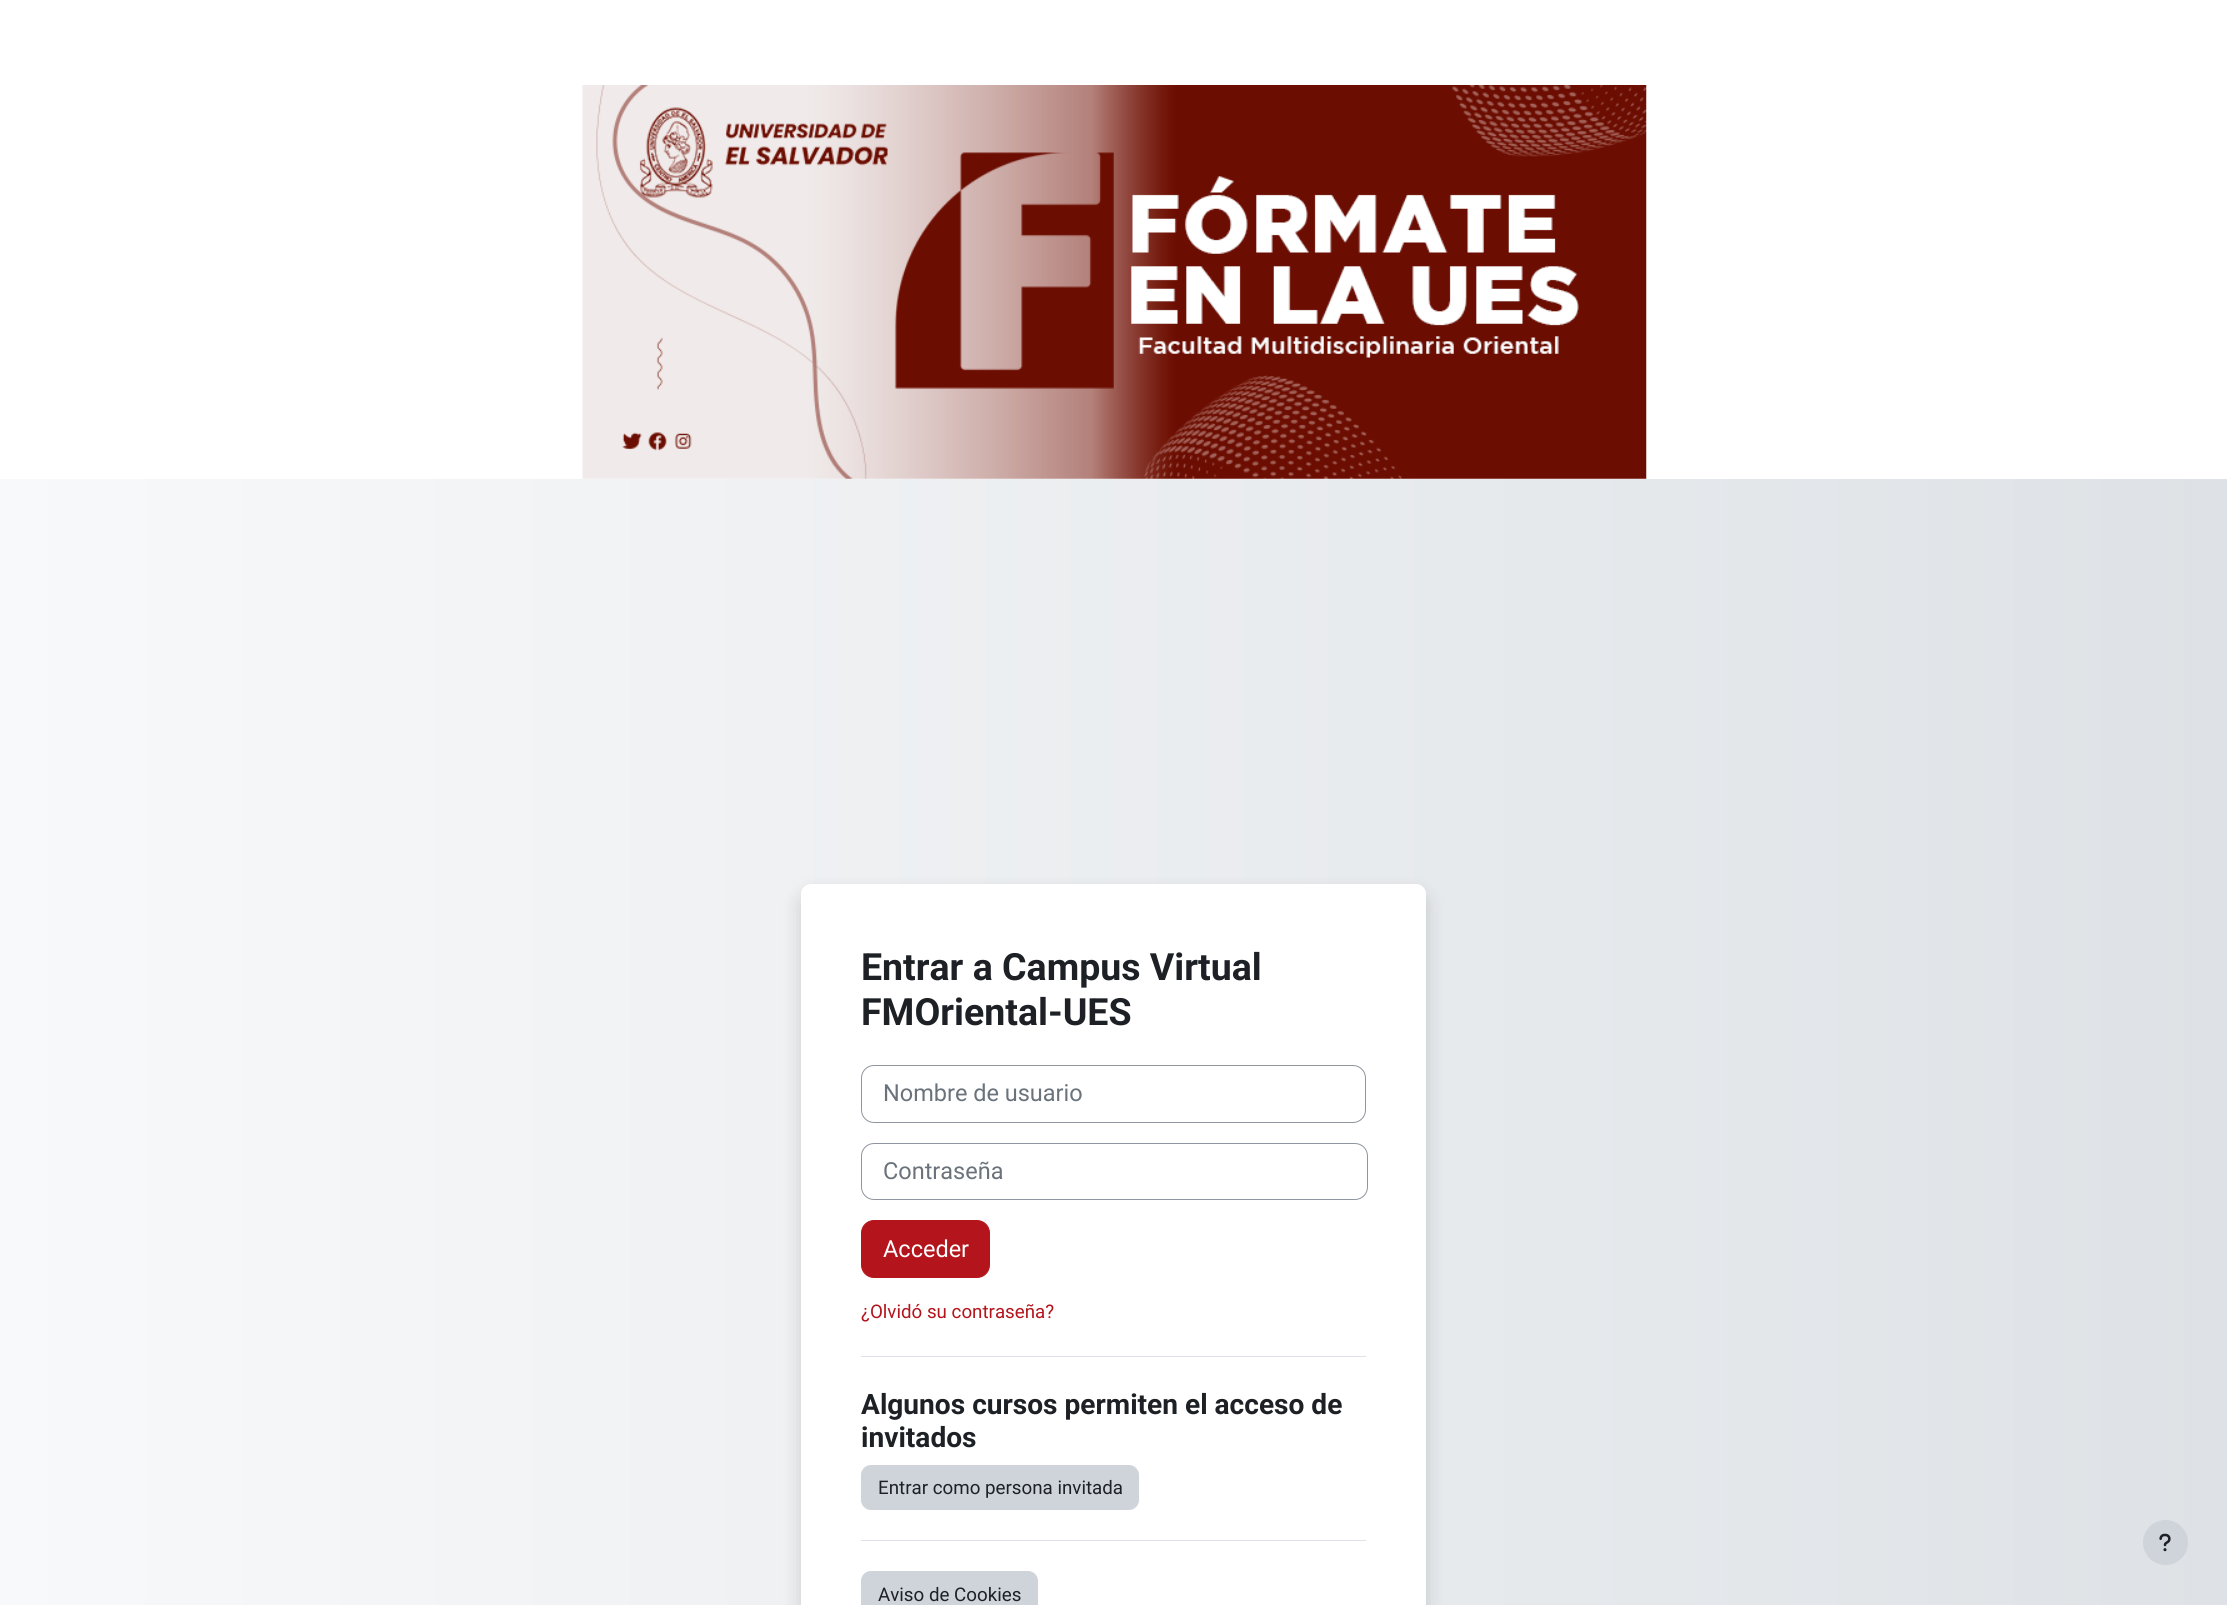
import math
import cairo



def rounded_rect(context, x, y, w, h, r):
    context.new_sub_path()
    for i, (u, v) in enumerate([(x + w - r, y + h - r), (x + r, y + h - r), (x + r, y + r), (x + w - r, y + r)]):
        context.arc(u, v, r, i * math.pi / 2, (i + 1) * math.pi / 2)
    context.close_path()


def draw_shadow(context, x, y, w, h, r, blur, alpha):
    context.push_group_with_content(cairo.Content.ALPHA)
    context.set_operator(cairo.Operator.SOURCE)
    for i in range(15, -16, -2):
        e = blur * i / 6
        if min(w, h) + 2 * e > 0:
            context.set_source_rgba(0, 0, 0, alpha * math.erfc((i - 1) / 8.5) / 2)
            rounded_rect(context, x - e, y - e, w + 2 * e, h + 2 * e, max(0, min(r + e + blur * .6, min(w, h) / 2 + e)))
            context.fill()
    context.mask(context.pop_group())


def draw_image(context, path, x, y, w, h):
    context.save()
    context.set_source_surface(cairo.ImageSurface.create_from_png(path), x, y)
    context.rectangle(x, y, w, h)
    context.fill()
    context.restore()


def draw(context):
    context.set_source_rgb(1, 1, 1)
    context.paint()
    draw_image(context, "images/1.png", 582, 85, 1065, 394)
    gradient = cairo.LinearGradient(0, 1281, 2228, 1281)
    gradient.add_color_stop_rgba(0, 248 / 255, 249 / 255, 250 / 255, 1)
    gradient.add_color_stop_rgba(1, 222 / 255, 226 / 255, 230 / 255, 1)
    context.set_source(gradient)
    context.rectangle(0, 479, 2227, 1126)
    context.fill()
    context.set_source_rgb(0, 0, 0)
    draw_shadow(context, 801, 894, 625, 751, 10, 10, 0.15)
    context.set_source_rgb(1, 1, 1)
    rounded_rect(context, 801, 884, 625, 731, 10)
    context.fill()
    rounded_rect(context, 861.5, 1065.5, 504, 57, 12.5)
    context.set_source_rgb(143 / 255, 149 / 255, 158 / 255)
    context.set_line_width(1)
    context.stroke()
    rounded_rect(context, 861.5, 1143.5, 506, 56, 12.5)
    context.stroke()
    context.set_source_rgb(180 / 255, 21 / 255, 28 / 255)
    rounded_rect(context, 861.5, 1220.5, 128, 57, 12.5)
    context.fill_preserve()
    context.stroke()
    context.set_source_rgb(222 / 255, 226 / 255, 230 / 255)
    context.rectangle(861, 1356, 505, 1)
    context.fill()
    context.set_source_rgb(206 / 255, 212 / 255, 218 / 255)
    rounded_rect(context, 861.5, 1465.5, 277, 44, 9.5)
    context.fill_preserve()
    context.stroke()
    context.set_source_rgb(222 / 255, 226 / 255, 230 / 255)
    context.rectangle(861, 1540, 505, 1)
    context.fill()
    context.set_source_rgb(206 / 255, 212 / 255, 218 / 255)
    rounded_rect(context, 861.5, 1571.5, 176, 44, 9.5)
    context.fill_preserve()
    context.stroke()
    context.arc(2165.5, 1542.5, 22.5, 0, 2 * math.pi)
    context.fill()
    draw_image(context, "images/2.png", 2159, 1533, 12, 19)
    context.select_font_face("Roboto", cairo.FontSlant.NORMAL, cairo.FontWeight.BOLD)
    context.set_font_size(37.5)
    context.set_source_rgb(29 / 255, 33 / 255, 37 / 255)
    context.move_to(861, 980)
    context.show_text("Entrar a Campus Virtual")
    context.move_to(861, 1025)
    context.show_text("FMOriental-UES")
    context.select_font_face("Roboto")
    context.set_font_size(23.5)
    context.set_source_rgb(106 / 255, 115 / 255, 123 / 255)
    context.move_to(883, 1101)
    context.show_text("Nombre de usuario")
    context.move_to(883, 1179)
    context.show_text("Contraseña")
    context.set_source_rgb(1, 1, 1)
    context.move_to(883, 1257)
    context.show_text("Acceder")
    context.set_font_size(18.75)
    context.set_source_rgb(180 / 255, 21 / 255, 28 / 255)
    context.move_to(861, 1318)
    context.show_text("¿Olvidó su contraseña?")
    context.select_font_face("Roboto", cairo.FontSlant.NORMAL, cairo.FontWeight.BOLD)
    context.set_font_size(28.1)
    context.set_source_rgb(29 / 255, 33 / 255, 37 / 255)
    context.move_to(861, 1414)
    context.show_text("Algunos cursos permiten el acceso de")
    context.move_to(861, 1447)
    context.show_text("invitados")
    context.select_font_face("Roboto")
    context.set_font_size(18.75)
    context.move_to(878, 1494)
    context.show_text("Entrar como persona invitada")
    context.move_to(878, 1601)
    context.show_text("Aviso de Cookies")


surface = cairo.ImageSurface(cairo.Format.RGB24, 2227, 1605)
context = cairo.Context(surface)
options = cairo.FontOptions()
options.set_hint_metrics(cairo.HintMetrics.OFF)
options.set_hint_style(cairo.HintStyle.NONE)
context.set_font_options(options)
context.set_miter_limit(4)
draw(context)
surface.write_to_png("out.png")
